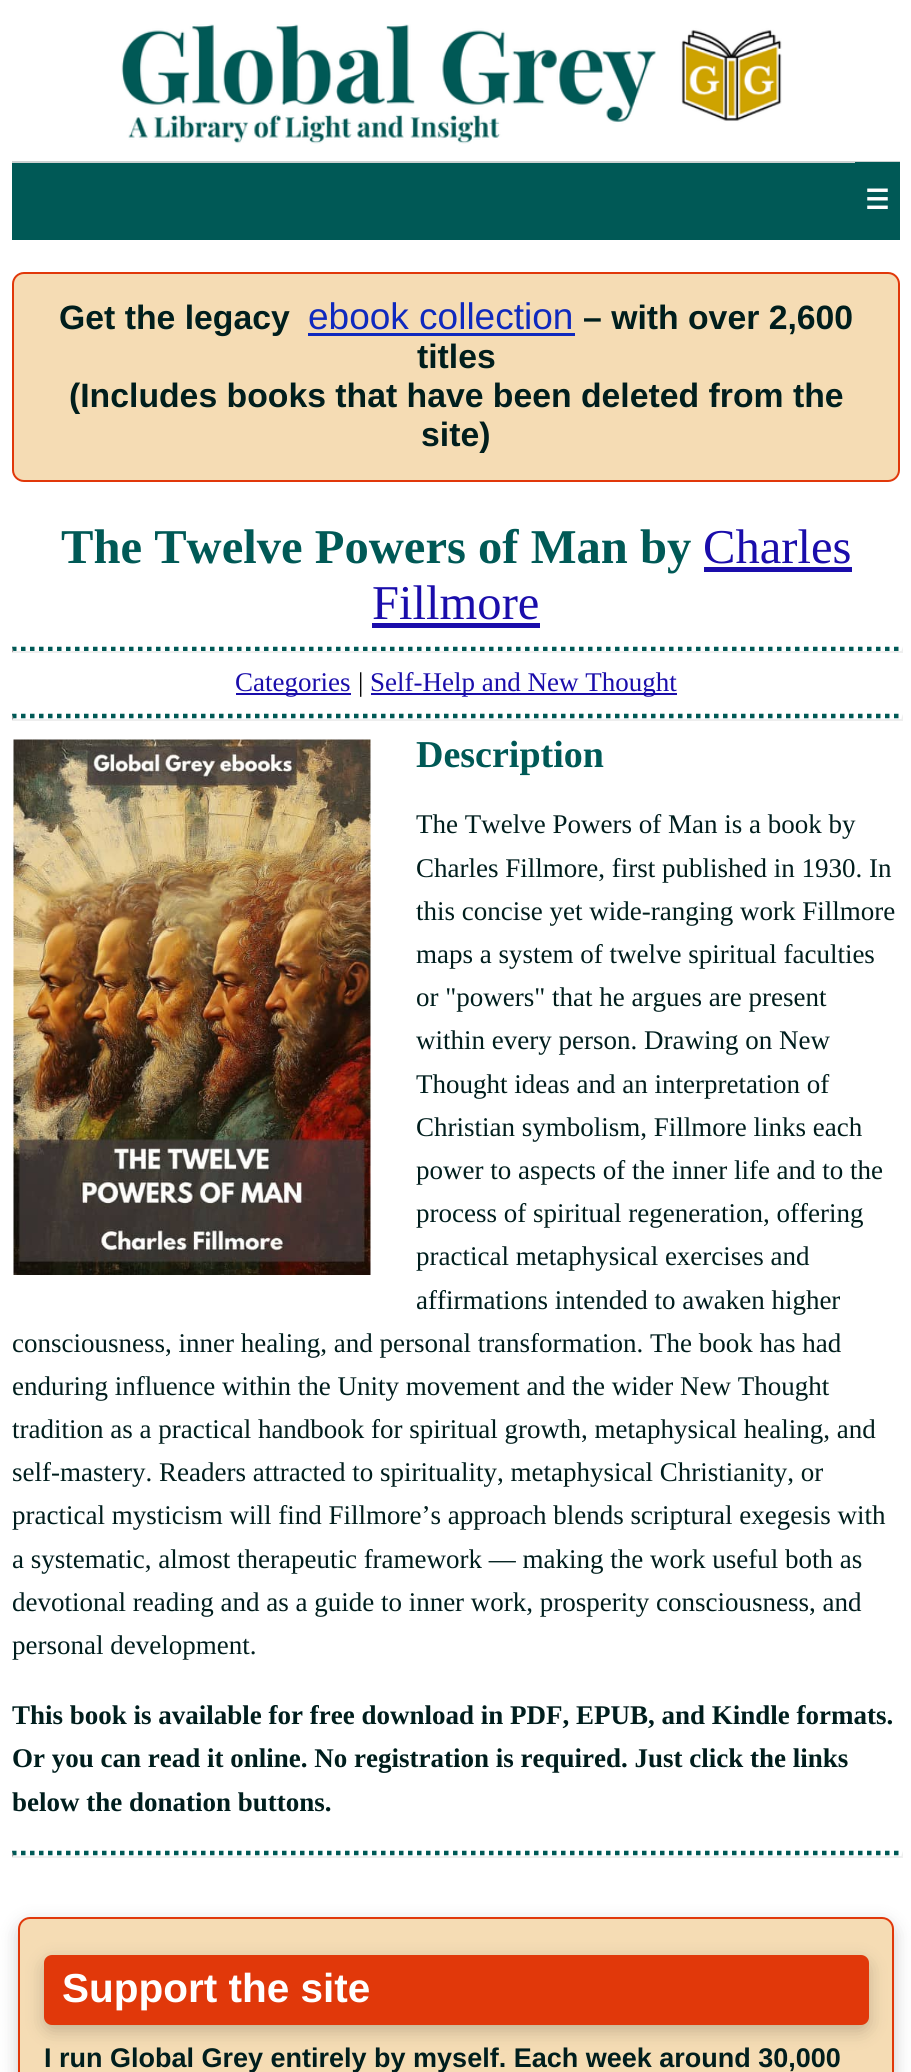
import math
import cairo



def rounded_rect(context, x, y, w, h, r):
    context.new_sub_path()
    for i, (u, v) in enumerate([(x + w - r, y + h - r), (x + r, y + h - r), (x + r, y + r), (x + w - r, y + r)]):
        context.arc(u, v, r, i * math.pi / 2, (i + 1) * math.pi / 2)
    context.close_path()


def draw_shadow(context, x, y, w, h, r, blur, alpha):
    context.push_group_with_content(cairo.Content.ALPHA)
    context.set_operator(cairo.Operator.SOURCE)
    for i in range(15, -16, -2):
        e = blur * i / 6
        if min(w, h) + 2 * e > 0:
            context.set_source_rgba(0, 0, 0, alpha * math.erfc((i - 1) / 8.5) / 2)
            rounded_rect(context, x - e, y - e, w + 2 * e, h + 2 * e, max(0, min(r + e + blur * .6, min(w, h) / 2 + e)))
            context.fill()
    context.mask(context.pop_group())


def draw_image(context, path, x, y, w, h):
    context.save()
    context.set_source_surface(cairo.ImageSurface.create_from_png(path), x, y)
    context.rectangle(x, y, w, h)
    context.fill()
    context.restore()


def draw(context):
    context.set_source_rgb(1, 1, 1)
    context.paint()
    draw_image(context, "images/1.png", 121, 24, 661, 120)
    context.set_source_rgb(0, 89 / 255, 86 / 255)
    context.rectangle(12, 163, 843, 77)
    context.fill()
    context.set_source_rgb(204 / 255, 209 / 255, 209 / 255)
    context.rectangle(12, 161, 888, 2)
    context.fill()
    context.set_source_rgb(0, 89 / 255, 86 / 255)
    context.rectangle(855, 162, 45, 78)
    context.fill()
    context.set_source_rgb(245 / 255, 220 / 255, 180 / 255)
    rounded_rect(context, 13, 273, 886, 208, 11)
    context.fill_preserve()
    context.set_source_rgb(225 / 255, 56 / 255, 10 / 255)
    context.stroke()
    context.set_source_rgb(15 / 255, 41 / 255, 190 / 255)
    context.rectangle(308, 333, 267, 3)
    context.fill()
    context.set_source_rgb(26 / 255, 13 / 255, 171 / 255)
    context.rectangle(704, 567, 148, 5)
    context.fill()
    context.rectangle(372, 623, 168, 5)
    context.fill()
    context.new_path()
    context.move_to(12, 649)
    context.line_to(903, 649)
    context.set_source_rgb(0, 89 / 255, 86 / 255)
    context.set_line_width(4.5)
    context.set_dash([4.5, 4.5])
    context.stroke()
    context.set_source_rgb(238 / 255, 238 / 255, 238 / 255)
    context.new_path()
    context.move_to(903, 646.5)
    context.line_to(903, 652.5)
    context.line_to(901.5, 651)
    context.close_path()
    context.fill()
    context.rectangle(12, 651, 891, 2)
    context.fill()
    context.set_source_rgb(159 / 255, 159 / 255, 159 / 255)
    context.new_path()
    context.move_to(12, 652.5)
    context.line_to(12, 646.5)
    context.line_to(13.5, 651)
    context.close_path()
    context.fill()
    context.set_source_rgb(26 / 255, 13 / 255, 171 / 255)
    context.rectangle(236, 693, 115, 2)
    context.fill()
    context.rectangle(371, 693, 306, 2)
    context.fill()
    context.new_path()
    context.move_to(12, 716)
    context.line_to(903, 716)
    context.set_source_rgb(0, 89 / 255, 86 / 255)
    context.stroke()
    context.set_source_rgb(238 / 255, 238 / 255, 238 / 255)
    context.new_path()
    context.move_to(903, 714)
    context.line_to(903, 720)
    context.line_to(901.5, 718.5)
    context.close_path()
    context.fill()
    context.rectangle(12, 719, 891, 2)
    context.fill()
    context.set_source_rgb(159 / 255, 159 / 255, 159 / 255)
    context.new_path()
    context.move_to(12, 720)
    context.line_to(12, 714)
    context.line_to(13.5, 718.5)
    context.close_path()
    context.fill()
    draw_image(context, "images/2.png", 13, 739, 358, 536)
    context.new_path()
    context.move_to(12, 1853)
    context.line_to(903, 1853)
    context.set_source_rgb(0, 89 / 255, 86 / 255)
    context.stroke()
    context.set_source_rgb(238 / 255, 238 / 255, 238 / 255)
    context.new_path()
    context.move_to(903, 1851)
    context.line_to(903, 1857)
    context.line_to(901.5, 1855.5)
    context.close_path()
    context.fill()
    context.rectangle(12, 1856, 891, 2)
    context.fill()
    context.set_source_rgb(159 / 255, 159 / 255, 159 / 255)
    context.new_path()
    context.move_to(12, 1857)
    context.line_to(12, 1851)
    context.line_to(13.5, 1855.5)
    context.close_path()
    context.fill()
    context.set_source_rgb(0, 0, 0)
    draw_shadow(context, 18, 1923, 876, 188, 12, 9, 0.2)
    context.set_source_rgb(245 / 255, 220 / 255, 180 / 255)
    rounded_rect(context, 19, 1918, 874, 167, 11)
    context.fill_preserve()
    context.set_source_rgb(225 / 255, 56 / 255, 10 / 255)
    context.set_line_width(2)
    context.set_dash([])
    context.stroke()
    context.set_source_rgb(0, 0, 0)
    draw_shadow(context, 44, 1961, 825, 70, 8, 9, 0.2)
    context.set_source_rgb(225 / 255, 56 / 255, 10 / 255)
    rounded_rect(context, 44, 1955, 825, 70, 8)
    context.fill()
    context.select_font_face("DejaVu Sans", cairo.FontSlant.NORMAL, cairo.FontWeight.BOLD)
    context.set_font_size(27)
    context.set_source_rgb(1, 1, 1)
    context.move_to(865, 209)
    context.show_text("☰")
    context.select_font_face("Liberation Sans", cairo.FontSlant.NORMAL, cairo.FontWeight.BOLD)
    context.set_font_size(33.75)
    context.set_source_rgb(0, 30 / 255, 29 / 255)
    context.move_to(59, 329)
    context.show_text("Get the legacy")
    context.select_font_face("Liberation Sans")
    context.set_font_size(37)
    context.set_source_rgb(15 / 255, 41 / 255, 190 / 255)
    context.move_to(308, 329)
    context.show_text("ebook collection")
    context.select_font_face("Liberation Sans", cairo.FontSlant.NORMAL, cairo.FontWeight.BOLD)
    context.set_font_size(33.75)
    context.set_source_rgb(0, 30 / 255, 29 / 255)
    context.move_to(583, 329)
    context.show_text("– with over 2,600")
    context.move_to(417, 368)
    context.show_text("titles")
    context.move_to(69, 407)
    context.show_text("(Includes books that have been deleted from the")
    context.move_to(421, 446)
    context.show_text("site)")
    context.select_font_face("Liberation Serif", cairo.FontSlant.NORMAL, cairo.FontWeight.BOLD)
    context.set_font_size(48.6)
    context.set_source_rgb(0, 89 / 255, 86 / 255)
    context.move_to(61, 563)
    context.show_text("The Twelve Powers of Man by")
    context.select_font_face("Liberation Serif")
    context.set_source_rgb(26 / 255, 13 / 255, 171 / 255)
    context.move_to(703, 563)
    context.show_text("Charles")
    context.move_to(372, 619)
    context.show_text("Fillmore")
    context.set_font_size(27)
    context.move_to(235, 691)
    context.show_text("Categories")
    context.set_source_rgb(0, 0, 0)
    context.move_to(358, 691)
    context.show_text("|")
    context.set_source_rgb(26 / 255, 13 / 255, 171 / 255)
    context.move_to(370, 691)
    context.show_text("Self-Help and New Thought")
    context.select_font_face("Liberation Serif", cairo.FontSlant.NORMAL, cairo.FontWeight.BOLD)
    context.set_font_size(38)
    context.set_source_rgb(0, 89 / 255, 86 / 255)
    context.move_to(416, 767)
    context.show_text("Description")
    context.select_font_face("Liberation Serif")
    context.set_font_size(27)
    context.set_source_rgb(0, 30 / 255, 29 / 255)
    context.move_to(416, 833)
    context.show_text("The Twelve Powers of Man is a book by")
    context.move_to(416, 877)
    context.show_text("Charles Fillmore, first published in 1930. In")
    context.move_to(416, 920)
    context.show_text("this concise yet wide-ranging work Fillmore")
    context.move_to(416, 963)
    context.show_text("maps a system of twelve spiritual faculties")
    context.move_to(416, 1006)
    context.show_text("or \"powers\" that he argues are present")
    context.move_to(416, 1049)
    context.show_text("within every person. Drawing on New")
    context.move_to(416, 1093)
    context.show_text("Thought ideas and an interpretation of")
    context.move_to(416, 1136)
    context.show_text("Christian symbolism, Fillmore links each")
    context.move_to(416, 1179)
    context.show_text("power to aspects of the inner life and to the")
    context.move_to(416, 1222)
    context.show_text("process of spiritual regeneration, offering")
    context.move_to(416, 1265)
    context.show_text("practical metaphysical exercises and")
    context.move_to(416, 1309)
    context.show_text("affirmations intended to awaken higher")
    context.move_to(12, 1352)
    context.show_text("consciousness, inner healing, and personal transformation. The book has had")
    context.move_to(12, 1395)
    context.show_text("enduring influence within the Unity movement and the wider New Thought")
    context.move_to(12, 1438)
    context.show_text("tradition as a practical handbook for spiritual growth, metaphysical healing, and")
    context.move_to(12, 1481)
    context.show_text("self-mastery. Readers attracted to spirituality, metaphysical Christianity, or")
    context.move_to(12, 1524)
    context.show_text("practical mysticism will find Fillmore’s approach blends scriptural exegesis with")
    context.move_to(12, 1568)
    context.show_text("a systematic, almost therapeutic framework — making the work useful both as")
    context.move_to(12, 1611)
    context.show_text("devotional reading and as a guide to inner work, prosperity consciousness, and")
    context.move_to(12, 1654)
    context.show_text("personal development.")
    context.select_font_face("Liberation Serif", cairo.FontSlant.NORMAL, cairo.FontWeight.BOLD)
    context.move_to(12, 1724)
    context.show_text("This book is available for free download in PDF, EPUB, and Kindle formats.")
    context.move_to(12, 1767)
    context.show_text("Or you can read it online. No registration is required. Just click the links")
    context.move_to(12, 1811)
    context.show_text("below the donation buttons.")
    context.select_font_face("Liberation Sans", cairo.FontSlant.NORMAL, cairo.FontWeight.BOLD)
    context.set_font_size(40.5)
    context.set_source_rgb(1, 1, 1)
    context.move_to(62, 2002)
    context.show_text("Support the site")
    context.set_font_size(27)
    context.set_source_rgb(0, 30 / 255, 29 / 255)
    context.move_to(44, 2067)
    context.show_text("I run Global Grey entirely by myself. Each week around 30,000")


surface = cairo.ImageSurface(cairo.Format.RGB24, 911, 2072)
context = cairo.Context(surface)
options = cairo.FontOptions()
options.set_hint_metrics(cairo.HintMetrics.OFF)
options.set_hint_style(cairo.HintStyle.NONE)
context.set_font_options(options)
context.set_miter_limit(4)
draw(context)
surface.write_to_png("out.png")
